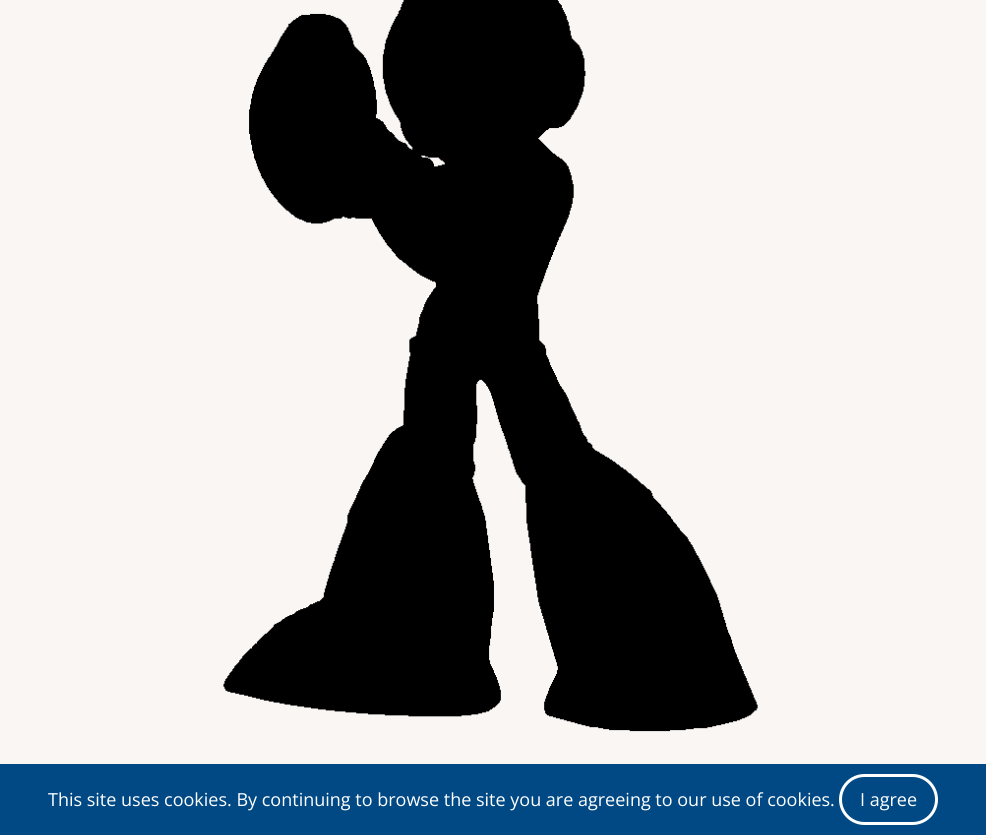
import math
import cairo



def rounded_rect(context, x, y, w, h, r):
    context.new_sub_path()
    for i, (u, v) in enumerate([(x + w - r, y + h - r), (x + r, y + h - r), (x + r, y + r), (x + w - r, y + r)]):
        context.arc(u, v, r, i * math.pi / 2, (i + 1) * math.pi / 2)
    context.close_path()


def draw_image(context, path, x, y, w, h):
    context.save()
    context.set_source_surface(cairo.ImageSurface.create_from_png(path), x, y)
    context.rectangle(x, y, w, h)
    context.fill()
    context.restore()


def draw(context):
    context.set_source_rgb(249 / 255, 246 / 255, 243 / 255)
    context.paint()
    draw_image(context, "images/1.png", 223, 0, 535, 732)
    context.set_source_rgb(0, 73 / 255, 132 / 255)
    context.rectangle(0, 764, 986, 71)
    context.fill()
    rounded_rect(context, 840.5, 775.5, 96, 48, 24)
    context.set_source_rgb(1, 1, 1)
    context.set_line_width(3)
    context.stroke()
    context.select_font_face("Open Sans")
    context.set_font_size(18)
    context.move_to(48, 806)
    context.show_text("This site uses cookies. By continuing to browse the site you are agreeing to our use of cookies.")
    context.move_to(860, 806)
    context.show_text("I agree")


surface = cairo.ImageSurface(cairo.Format.RGB24, 986, 835)
context = cairo.Context(surface)
options = cairo.FontOptions()
options.set_hint_metrics(cairo.HintMetrics.OFF)
options.set_hint_style(cairo.HintStyle.NONE)
context.set_font_options(options)
context.set_miter_limit(4)
draw(context)
surface.write_to_png("out.png")
